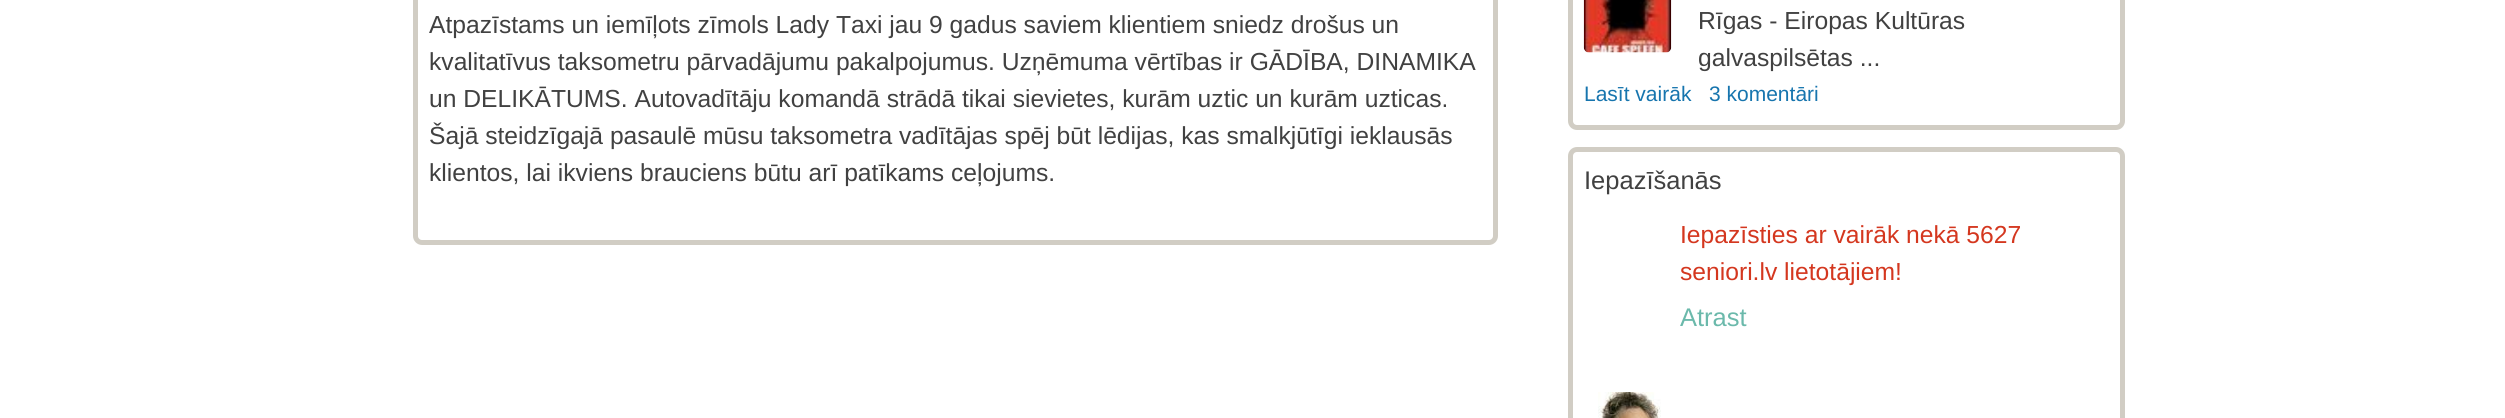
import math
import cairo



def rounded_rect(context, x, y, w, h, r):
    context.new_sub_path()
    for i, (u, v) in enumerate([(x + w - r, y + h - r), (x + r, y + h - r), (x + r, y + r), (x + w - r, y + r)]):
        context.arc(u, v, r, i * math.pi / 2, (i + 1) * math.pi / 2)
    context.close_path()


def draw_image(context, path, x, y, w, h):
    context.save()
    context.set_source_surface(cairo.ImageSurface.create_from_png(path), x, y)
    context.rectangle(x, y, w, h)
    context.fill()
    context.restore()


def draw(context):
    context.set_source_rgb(1, 1, 1)
    context.paint()
    context.new_path()
    context.move_to(415.5, -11.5)
    context.line_to(1489, -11.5)
    context.curve_to(1492.5, -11.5, 1495.5, -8.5, 1495.5, -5)
    context.line_to(1495.5, 236)
    context.curve_to(1495.5, 239.5, 1492.5, 242.5, 1489, 242.5)
    context.line_to(422, 242.5)
    context.curve_to(418.5, 242.5, 415.5, 239.5, 415.5, 236)
    context.close_path()
    context.set_source_rgb(209 / 255, 205 / 255, 196 / 255)
    context.set_line_width(5)
    context.stroke()
    rounded_rect(context, 1570.5, -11.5, 552, 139, 6.5)
    context.stroke()
    draw_image(context, "images/1.png", 1583, 0, 89, 53)
    rounded_rect(context, 1570.5, 149.5, 552, 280, 6.5)
    context.stroke()
    draw_image(context, "images/2.png", 1598, 392, 63, 26)
    context.select_font_face("Liberation Sans")
    context.set_font_size(24.65)
    context.set_source_rgb(65 / 255, 65 / 255, 65 / 255)
    context.move_to(429, 33)
    context.show_text("Atpazīstams un iemīļots zīmols Lady Taxi jau 9 gadus saviem klientiem sniedz drošus un")
    context.move_to(429, 70)
    context.show_text("kvalitatīvus taksometru pārvadājumu pakalpojumus. Uzņēmuma vērtības ir GĀDĪBA, DINAMIKA")
    context.move_to(429, 107)
    context.show_text("un DELIKĀTUMS. Autovadītāju komandā strādā tikai sievietes, kurām uztic un kurām uzticas.")
    context.move_to(429, 144)
    context.show_text("Šajā steidzīgajā pasaulē mūsu taksometra vadītājas spēj būt lēdijas, kas smalkjūtīgi ieklausās")
    context.move_to(429, 181)
    context.show_text("klientos, lai ikviens brauciens būtu arī patīkams ceļojums.")
    context.move_to(1698, 29)
    context.show_text("Rīgas - Eiropas Kultūras")
    context.move_to(1698, 66)
    context.show_text("galvaspilsētas ...")
    context.set_font_size(21)
    context.set_source_rgb(23 / 255, 117 / 255, 174 / 255)
    context.move_to(1584, 101)
    context.show_text("Lasīt vairāk")
    context.move_to(1709, 101)
    context.show_text("3 komentāri")
    context.set_font_size(25.5)
    context.set_source_rgb(65 / 255, 65 / 255, 65 / 255)
    context.move_to(1584, 189)
    context.show_text("Iepazīšanās")
    context.set_font_size(24.65)
    context.set_source_rgb(212 / 255, 55 / 255, 31 / 255)
    context.move_to(1680, 243)
    context.show_text("Iepazīsties ar vairāk nekā 5627")
    context.move_to(1680, 280)
    context.show_text("seniori.lv lietotājiem!")
    context.set_font_size(25.5)
    context.set_source_rgb(107 / 255, 185 / 255, 171 / 255)
    context.move_to(1680, 326)
    context.show_text("Atrast")


surface = cairo.ImageSurface(cairo.Format.RGB24, 2505, 418)
context = cairo.Context(surface)
options = cairo.FontOptions()
options.set_hint_metrics(cairo.HintMetrics.OFF)
options.set_hint_style(cairo.HintStyle.NONE)
context.set_font_options(options)
context.set_miter_limit(4)
draw(context)
surface.write_to_png("out.png")
